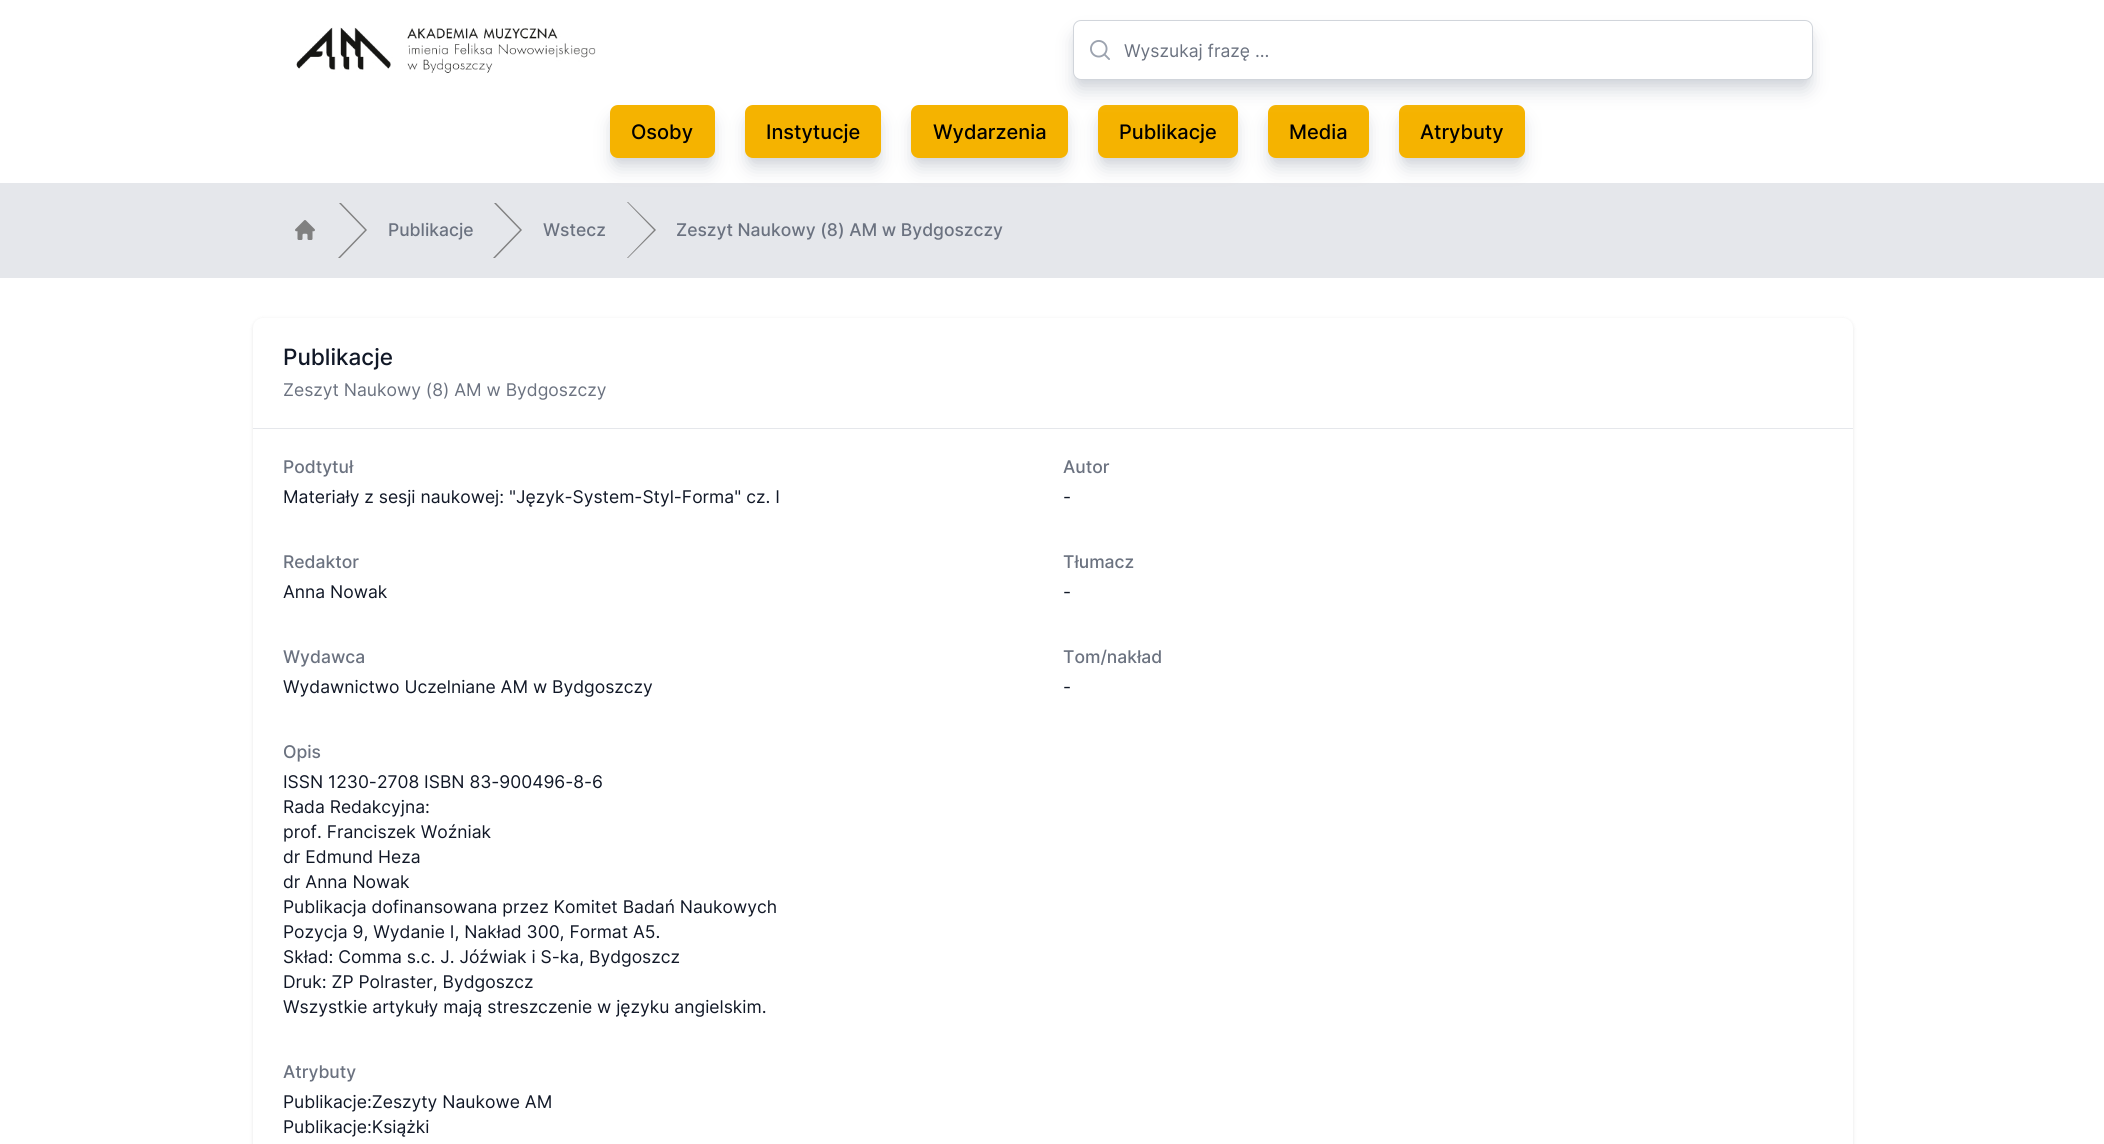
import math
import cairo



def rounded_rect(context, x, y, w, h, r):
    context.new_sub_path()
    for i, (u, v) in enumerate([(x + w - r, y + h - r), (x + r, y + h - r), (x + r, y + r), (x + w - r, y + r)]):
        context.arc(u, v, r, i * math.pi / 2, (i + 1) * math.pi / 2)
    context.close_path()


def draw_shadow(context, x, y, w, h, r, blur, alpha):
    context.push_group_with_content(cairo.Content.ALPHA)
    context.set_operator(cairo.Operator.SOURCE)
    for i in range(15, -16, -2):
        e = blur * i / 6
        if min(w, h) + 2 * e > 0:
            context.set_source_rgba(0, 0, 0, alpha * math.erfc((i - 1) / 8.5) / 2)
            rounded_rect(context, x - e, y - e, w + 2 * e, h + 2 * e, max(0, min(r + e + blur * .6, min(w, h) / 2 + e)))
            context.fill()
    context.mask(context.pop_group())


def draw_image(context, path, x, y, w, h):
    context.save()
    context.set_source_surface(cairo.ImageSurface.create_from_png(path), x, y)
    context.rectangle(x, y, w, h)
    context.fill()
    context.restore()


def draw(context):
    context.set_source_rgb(1, 1, 1)
    context.paint()
    draw_image(context, "images/1.png", 296, 27, 300, 46)
    context.set_source_rgb(209 / 255, 213 / 255, 219 / 255)
    draw_shadow(context, 1078, 30, 730, 50, 2.5, 4, 1)
    draw_shadow(context, 916, 115, 147, 43, 2.5, 4, 1)
    context.set_source_rgb(229 / 255, 231 / 255, 235 / 255)
    context.rectangle(0, 183, 2104, 95)
    context.fill()
    context.set_source_rgb(209 / 255, 213 / 255, 219 / 255)
    draw_shadow(context, 915, 121, 149, 45, 4, 9.5, 1)
    context.set_source_rgb(245 / 255, 179 / 255, 0)
    rounded_rect(context, 911, 105, 157, 53, 8)
    context.fill()
    context.set_source_rgb(209 / 255, 213 / 255, 219 / 255)
    draw_shadow(context, 1103, 115, 130, 43, 2.5, 4, 1)
    draw_shadow(context, 1101, 121, 133, 45, 4, 9.5, 1)
    context.set_source_rgb(245 / 255, 179 / 255, 0)
    rounded_rect(context, 1098, 105, 140, 53, 8)
    context.fill()
    context.set_source_rgb(209 / 255, 213 / 255, 219 / 255)
    draw_shadow(context, 1273, 115, 91, 43, 2.5, 4, 1)
    draw_shadow(context, 1271, 121, 94, 45, 4, 9.5, 1)
    context.set_source_rgb(245 / 255, 179 / 255, 0)
    rounded_rect(context, 1268, 105, 101, 53, 8)
    context.fill()
    context.set_source_rgb(209 / 255, 213 / 255, 219 / 255)
    draw_shadow(context, 1404, 115, 116, 43, 2.5, 4, 1)
    draw_shadow(context, 1403, 121, 118, 45, 4, 9.5, 1)
    context.set_source_rgb(245 / 255, 179 / 255, 0)
    rounded_rect(context, 1399, 105, 126, 53, 8)
    context.fill()
    context.set_source_rgb(209 / 255, 213 / 255, 219 / 255)
    draw_shadow(context, 1076, 36, 733, 53, 4, 9.5, 1)
    context.set_source_rgb(1, 1, 1)
    rounded_rect(context, 1073.5, 20.5, 739, 59, 7.5)
    context.fill_preserve()
    context.set_source_rgb(209 / 255, 213 / 255, 219 / 255)
    context.set_line_width(1)
    context.stroke()
    draw_image(context, "images/2.png", 1090, 40, 20, 20)
    context.set_source_rgb(209 / 255, 213 / 255, 219 / 255)
    draw_shadow(context, 615, 115, 95, 43, 2.5, 4, 1)
    draw_shadow(context, 614, 121, 97, 45, 4, 9.5, 1)
    context.set_source_rgb(245 / 255, 179 / 255, 0)
    rounded_rect(context, 610, 105, 105, 53, 8)
    context.fill()
    context.set_source_rgb(209 / 255, 213 / 255, 219 / 255)
    draw_shadow(context, 750, 115, 126, 43, 2.5, 4, 1)
    draw_shadow(context, 749, 121, 129, 45, 4, 9.5, 1)
    context.set_source_rgb(245 / 255, 179 / 255, 0)
    rounded_rect(context, 745, 105, 136, 53, 8)
    context.fill()
    draw_image(context, "images/3.png", 295, 220, 20, 20)
    context.save()
    context.rectangle(338, 203, 30, 55)
    context.clip()
    context.set_source_rgb(128 / 255, 128 / 255, 128 / 255)
    context.new_path()
    context.move_to(338, 202)
    context.line_to(365, 230)
    context.line_to(338, 258)
    context.line_to(340, 258)
    context.line_to(367, 230)
    context.line_to(340, 202)
    context.close_path()
    context.fill()
    context.restore()
    context.save()
    context.rectangle(493, 203, 30, 55)
    context.clip()
    context.set_source_rgb(128 / 255, 128 / 255, 128 / 255)
    context.new_path()
    context.move_to(493, 202)
    context.line_to(520, 230)
    context.line_to(493, 258)
    context.line_to(495, 258)
    context.line_to(522, 230)
    context.line_to(495, 202)
    context.close_path()
    context.fill()
    context.restore()
    context.set_source_rgb(128 / 255, 128 / 255, 128 / 255)
    context.new_path()
    context.move_to(627, 202)
    context.line_to(654, 230)
    context.line_to(627, 258)
    context.line_to(628, 258)
    context.line_to(656, 230)
    context.line_to(628, 202)
    context.close_path()
    context.fill()
    context.set_source_rgb(0, 0, 0)
    draw_shadow(context, 253, 319, 1600, 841, 10, 2, 0.1)
    context.set_source_rgb(1, 1, 1)
    rounded_rect(context, 253, 318, 1600, 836, 10)
    context.fill()
    context.set_source_rgb(229 / 255, 231 / 255, 235 / 255)
    context.rectangle(253, 428, 1600, 1)
    context.fill()
    context.select_font_face("Inter")
    context.set_font_size(17.5)
    context.set_source_rgb(107 / 255, 114 / 255, 128 / 255)
    context.move_to(1124, 57)
    context.show_text("Wyszukaj frazę ...")
    context.select_font_face("Inter Medium")
    context.set_font_size(20)
    context.set_source_rgb(0, 0, 0)
    context.move_to(631, 139)
    context.show_text("Osoby")
    context.move_to(766, 139)
    context.show_text("Instytucje")
    context.move_to(933, 139)
    context.show_text("Wydarzenia")
    context.move_to(1119, 139)
    context.show_text("Publikacje")
    context.move_to(1289, 139)
    context.show_text("Media")
    context.move_to(1420, 139)
    context.show_text("Atrybuty")
    context.set_font_size(17.5)
    context.set_source_rgb(107 / 255, 114 / 255, 128 / 255)
    context.move_to(388, 236)
    context.show_text("Publikacje")
    context.move_to(543, 236)
    context.show_text("Wstecz")
    context.move_to(676, 236)
    context.show_text("Zeszyt Naukowy (8) AM w Bydgoszczy")
    context.set_font_size(22.5)
    context.set_source_rgb(17 / 255, 24 / 255, 39 / 255)
    context.move_to(283, 365)
    context.show_text("Publikacje")
    context.select_font_face("Inter")
    context.set_font_size(17.5)
    context.set_source_rgb(107 / 255, 114 / 255, 128 / 255)
    context.move_to(283, 396)
    context.show_text("Zeszyt Naukowy (8) AM w Bydgoszczy")
    context.select_font_face("Inter Medium")
    context.move_to(283, 473)
    context.show_text("Podtytuł")
    context.select_font_face("Inter")
    context.set_source_rgb(17 / 255, 24 / 255, 39 / 255)
    context.move_to(283, 503)
    context.show_text("Materiały z sesji naukowej: \"Język-System-Styl-Forma\" cz. I")
    context.select_font_face("Inter Medium")
    context.set_source_rgb(107 / 255, 114 / 255, 128 / 255)
    context.move_to(1063, 473)
    context.show_text("Autor")
    context.select_font_face("Inter")
    context.set_source_rgb(17 / 255, 24 / 255, 39 / 255)
    context.move_to(1063, 503)
    context.show_text("-")
    context.select_font_face("Inter Medium")
    context.set_source_rgb(107 / 255, 114 / 255, 128 / 255)
    context.move_to(283, 568)
    context.show_text("Redaktor")
    context.select_font_face("Inter")
    context.set_source_rgb(17 / 255, 24 / 255, 39 / 255)
    context.move_to(283, 598)
    context.show_text("Anna Nowak")
    context.select_font_face("Inter Medium")
    context.set_source_rgb(107 / 255, 114 / 255, 128 / 255)
    context.move_to(1063, 568)
    context.show_text("Tłumacz")
    context.select_font_face("Inter")
    context.set_source_rgb(17 / 255, 24 / 255, 39 / 255)
    context.move_to(1063, 598)
    context.show_text("-")
    context.select_font_face("Inter Medium")
    context.set_source_rgb(107 / 255, 114 / 255, 128 / 255)
    context.move_to(283, 663)
    context.show_text("Wydawca")
    context.select_font_face("Inter")
    context.set_source_rgb(17 / 255, 24 / 255, 39 / 255)
    context.move_to(283, 693)
    context.show_text("Wydawnictwo Uczelniane AM w Bydgoszczy")
    context.select_font_face("Inter Medium")
    context.set_source_rgb(107 / 255, 114 / 255, 128 / 255)
    context.move_to(1063, 663)
    context.show_text("Tom/nakład")
    context.select_font_face("Inter")
    context.set_source_rgb(17 / 255, 24 / 255, 39 / 255)
    context.move_to(1063, 693)
    context.show_text("-")
    context.select_font_face("Inter Medium")
    context.set_source_rgb(107 / 255, 114 / 255, 128 / 255)
    context.move_to(283, 758)
    context.show_text("Opis")
    context.select_font_face("Inter")
    context.set_source_rgb(17 / 255, 24 / 255, 39 / 255)
    context.move_to(283, 788)
    context.show_text("ISSN 1230-2708 ISBN 83-900496-8-6")
    context.move_to(283, 813)
    context.show_text("Rada Redakcyjna:")
    context.move_to(283, 838)
    context.show_text("prof. Franciszek Woźniak")
    context.move_to(283, 863)
    context.show_text("dr Edmund Heza")
    context.move_to(283, 888)
    context.show_text("dr Anna Nowak")
    context.move_to(283, 913)
    context.show_text("Publikacja dofinansowana przez Komitet Badań Naukowych")
    context.move_to(283, 938)
    context.show_text("Pozycja 9, Wydanie I, Nakład 300, Format A5.")
    context.move_to(283, 963)
    context.show_text("Skład: Comma s.c. J. Jóźwiak i S-ka, Bydgoszcz")
    context.move_to(283, 988)
    context.show_text("Druk: ZP Polraster, Bydgoszcz")
    context.move_to(283, 1013)
    context.show_text("Wszystkie artykuły mają streszczenie w języku angielskim.")
    context.select_font_face("Inter Medium")
    context.set_source_rgb(107 / 255, 114 / 255, 128 / 255)
    context.move_to(283, 1078)
    context.show_text("Atrybuty")
    context.select_font_face("Inter")
    context.set_source_rgb(17 / 255, 24 / 255, 39 / 255)
    context.move_to(283, 1108)
    context.show_text("Publikacje:Zeszyty Naukowe AM")
    context.move_to(283, 1133)
    context.show_text("Publikacje:Książki")


surface = cairo.ImageSurface(cairo.Format.RGB24, 2104, 1144)
context = cairo.Context(surface)
options = cairo.FontOptions()
options.set_hint_metrics(cairo.HintMetrics.OFF)
options.set_hint_style(cairo.HintStyle.NONE)
context.set_font_options(options)
context.set_miter_limit(4)
draw(context)
surface.write_to_png("out.png")
